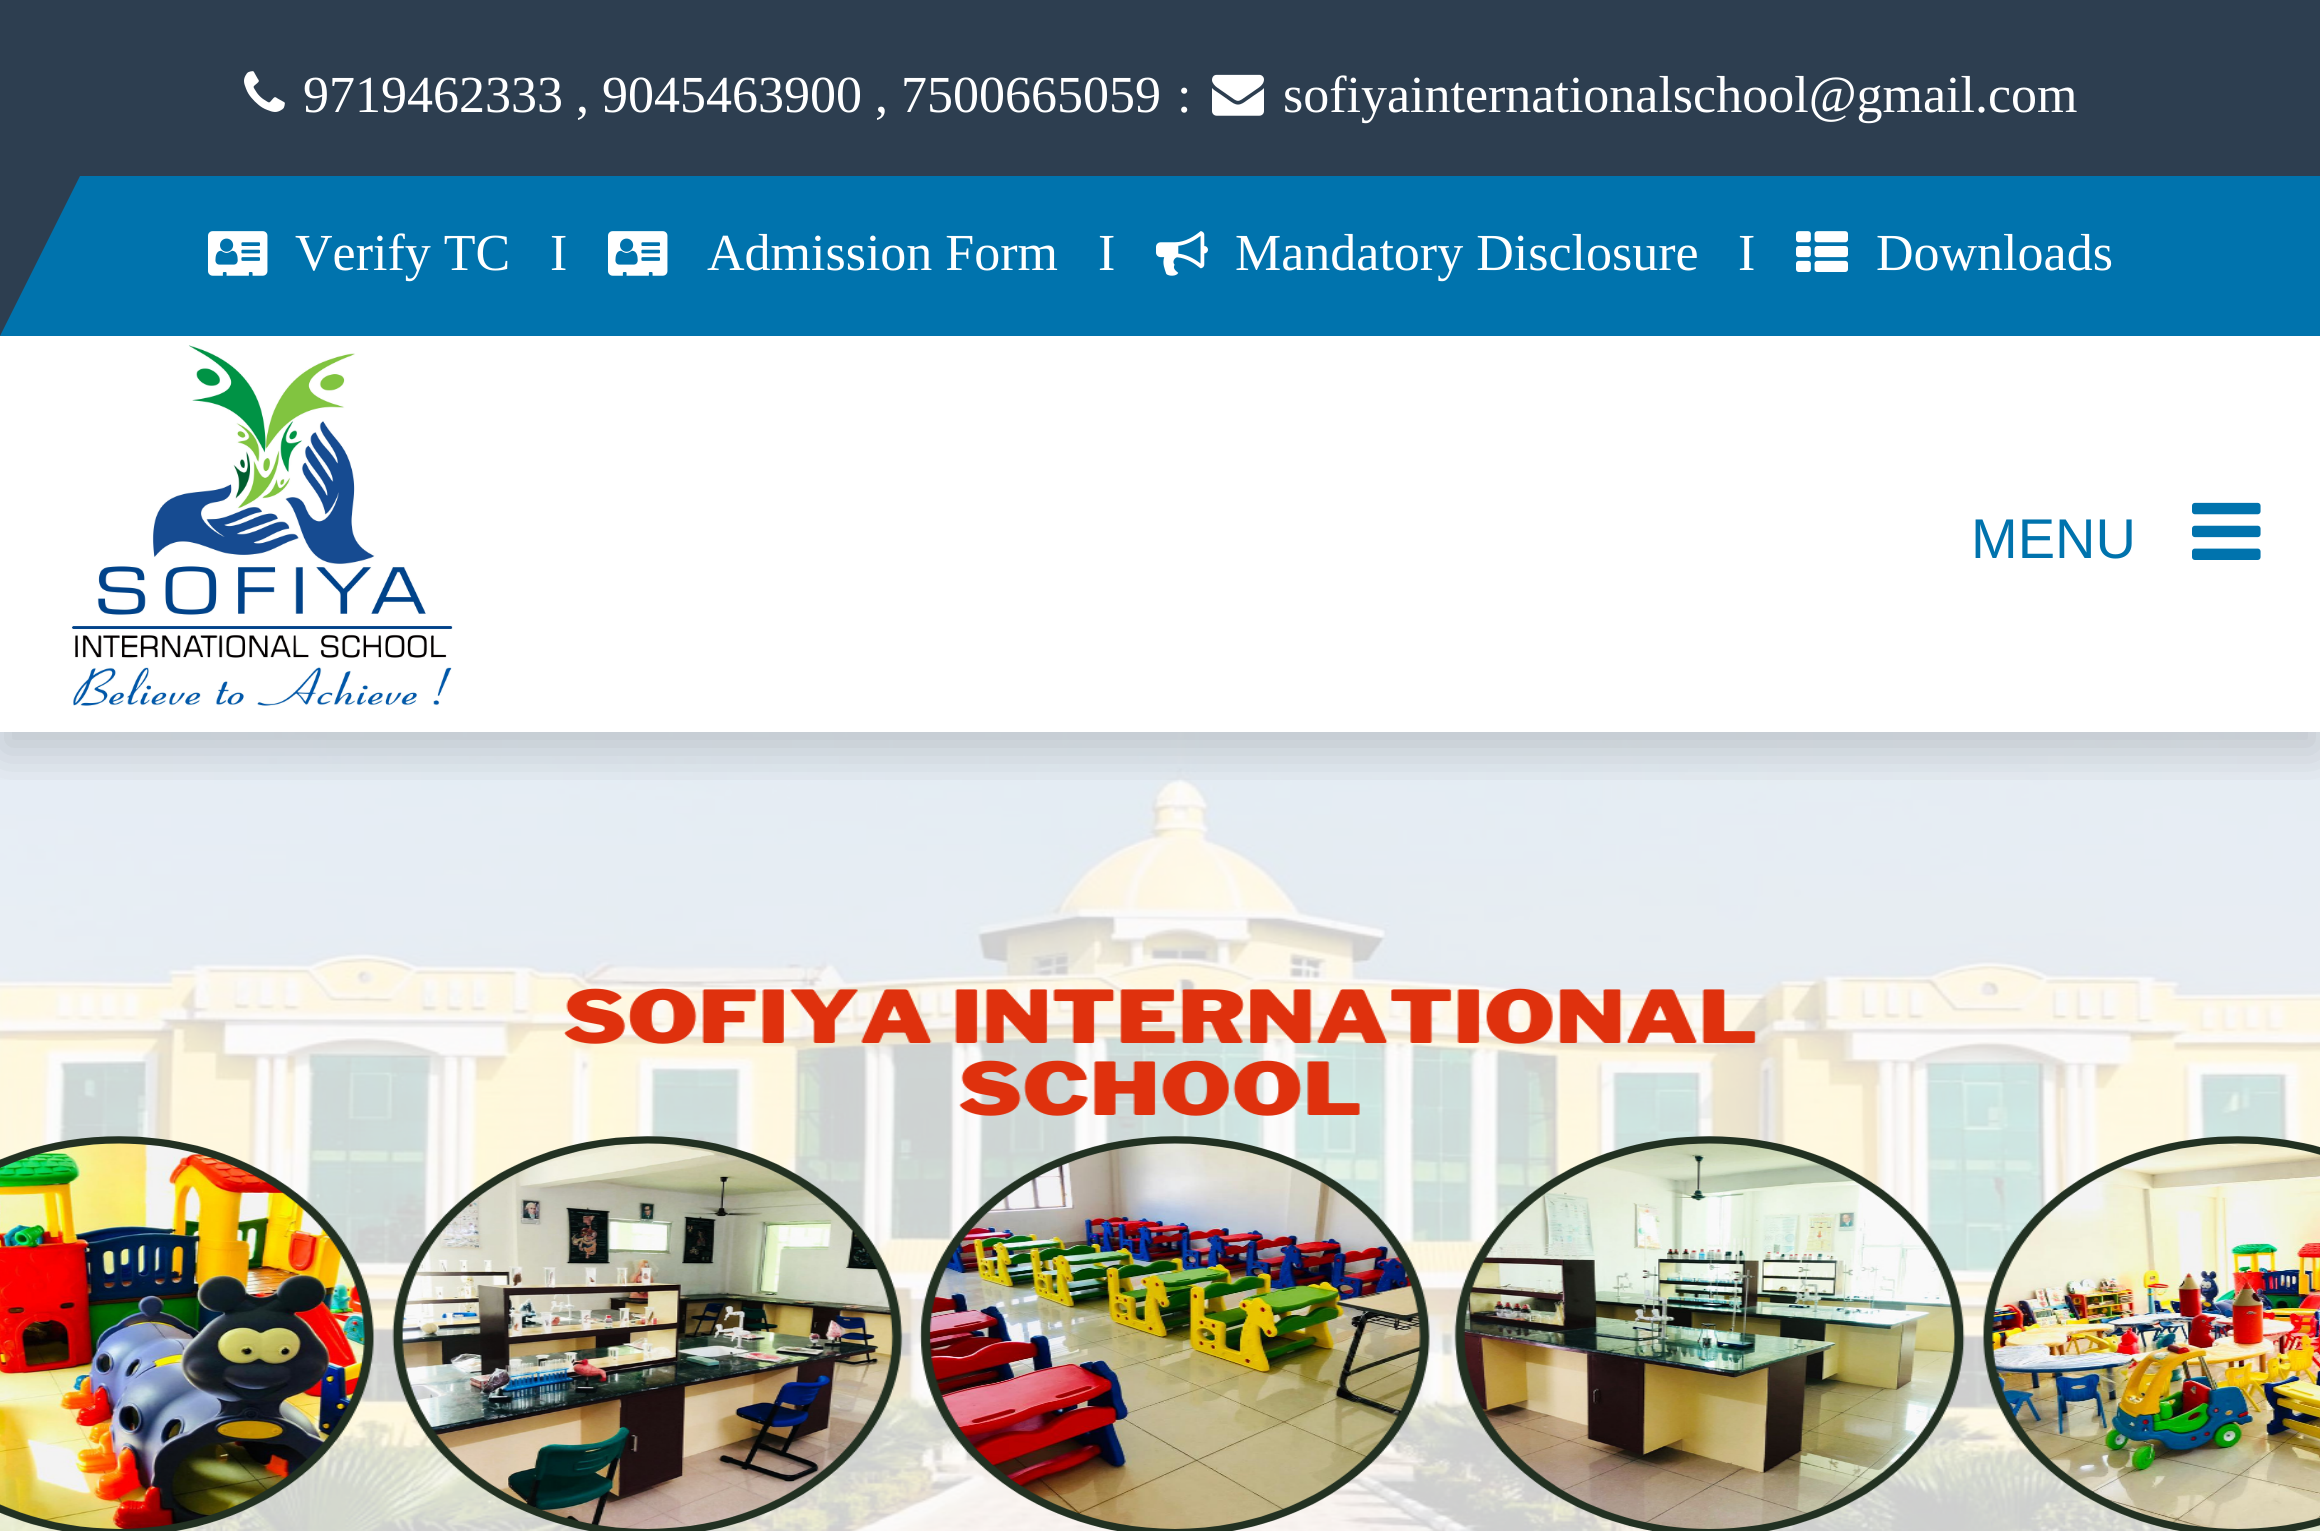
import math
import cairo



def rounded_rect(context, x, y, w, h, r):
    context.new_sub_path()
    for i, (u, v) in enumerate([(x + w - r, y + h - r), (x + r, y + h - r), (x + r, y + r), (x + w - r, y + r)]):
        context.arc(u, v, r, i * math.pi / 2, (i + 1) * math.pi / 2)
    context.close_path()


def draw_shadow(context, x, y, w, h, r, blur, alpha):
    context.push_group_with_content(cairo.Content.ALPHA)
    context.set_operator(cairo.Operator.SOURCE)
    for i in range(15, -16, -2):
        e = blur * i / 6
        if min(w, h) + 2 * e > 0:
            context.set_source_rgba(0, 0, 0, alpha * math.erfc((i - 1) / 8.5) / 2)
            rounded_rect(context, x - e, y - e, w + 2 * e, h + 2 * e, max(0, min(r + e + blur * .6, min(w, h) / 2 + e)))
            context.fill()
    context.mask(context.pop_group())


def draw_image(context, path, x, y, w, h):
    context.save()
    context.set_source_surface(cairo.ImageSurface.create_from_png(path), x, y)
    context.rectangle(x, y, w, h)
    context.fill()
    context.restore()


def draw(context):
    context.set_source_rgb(1, 1, 1)
    context.paint()
    draw_image(context, "images/8.png", 0, 732, 2320, 799)
    context.save()
    context.rectangle(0, 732, 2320, 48)
    context.clip()
    context.set_source_rgb(0, 0, 0)
    draw_shadow(context, 0, 356, 2320, 396, 0, 24, 0.17)
    context.restore()
    context.set_source_rgb(45 / 255, 62 / 255, 80 / 255)
    context.rectangle(0, 0, 2320, 336)
    context.fill()
    context.set_source_rgb(0, 115 / 255, 173 / 255)
    context.rectangle(80, 176, 2240, 160)
    context.fill()
    context.new_path()
    context.move_to(160, 336)
    context.line_to(0, 336)
    context.line_to(80, 176)
    context.close_path()
    context.fill()
    draw_image(context, "images/1.png", 244, 71, 41, 41)
    draw_image(context, "images/2.png", 1212, 74, 52, 42)
    draw_image(context, "images/3.png", 208, 231, 60, 45)
    draw_image(context, "images/3.png", 608, 231, 60, 45)
    draw_image(context, "images/4.png", 1156, 231, 52, 45)
    draw_image(context, "images/5.png", 1796, 231, 52, 41)
    draw_image(context, "images/6.png", 71, 345, 382, 361)
    draw_image(context, "images/7.png", 2192, 502, 69, 58)
    context.select_font_face("Liberation Serif")
    context.set_font_size(52)
    context.set_source_rgb(1, 1, 1)
    context.move_to(303, 112)
    context.show_text("9719462333 , 9045463900 , 7500665059")
    context.move_to(1177, 112)
    context.show_text(":")
    context.move_to(1283, 112)
    context.show_text("sofiyainternationalschool@gmail.com")
    context.move_to(295, 270)
    context.show_text("Verify TC")
    context.move_to(550, 270)
    context.show_text("I")
    context.move_to(707, 270)
    context.show_text("Admission Form")
    context.move_to(1098, 270)
    context.show_text("I")
    context.move_to(1235, 270)
    context.show_text("Mandatory Disclosure")
    context.move_to(1738, 270)
    context.show_text("I")
    context.move_to(1876, 270)
    context.show_text("Downloads")
    context.select_font_face("Liberation Sans")
    context.set_font_size(56)
    context.set_source_rgb(0, 115 / 255, 173 / 255)
    context.move_to(1971, 558)
    context.show_text("MENU")


surface = cairo.ImageSurface(cairo.Format.RGB24, 2320, 1531)
context = cairo.Context(surface)
options = cairo.FontOptions()
options.set_hint_metrics(cairo.HintMetrics.OFF)
options.set_hint_style(cairo.HintStyle.NONE)
context.set_font_options(options)
context.set_miter_limit(4)
draw(context)
surface.write_to_png("out.png")
